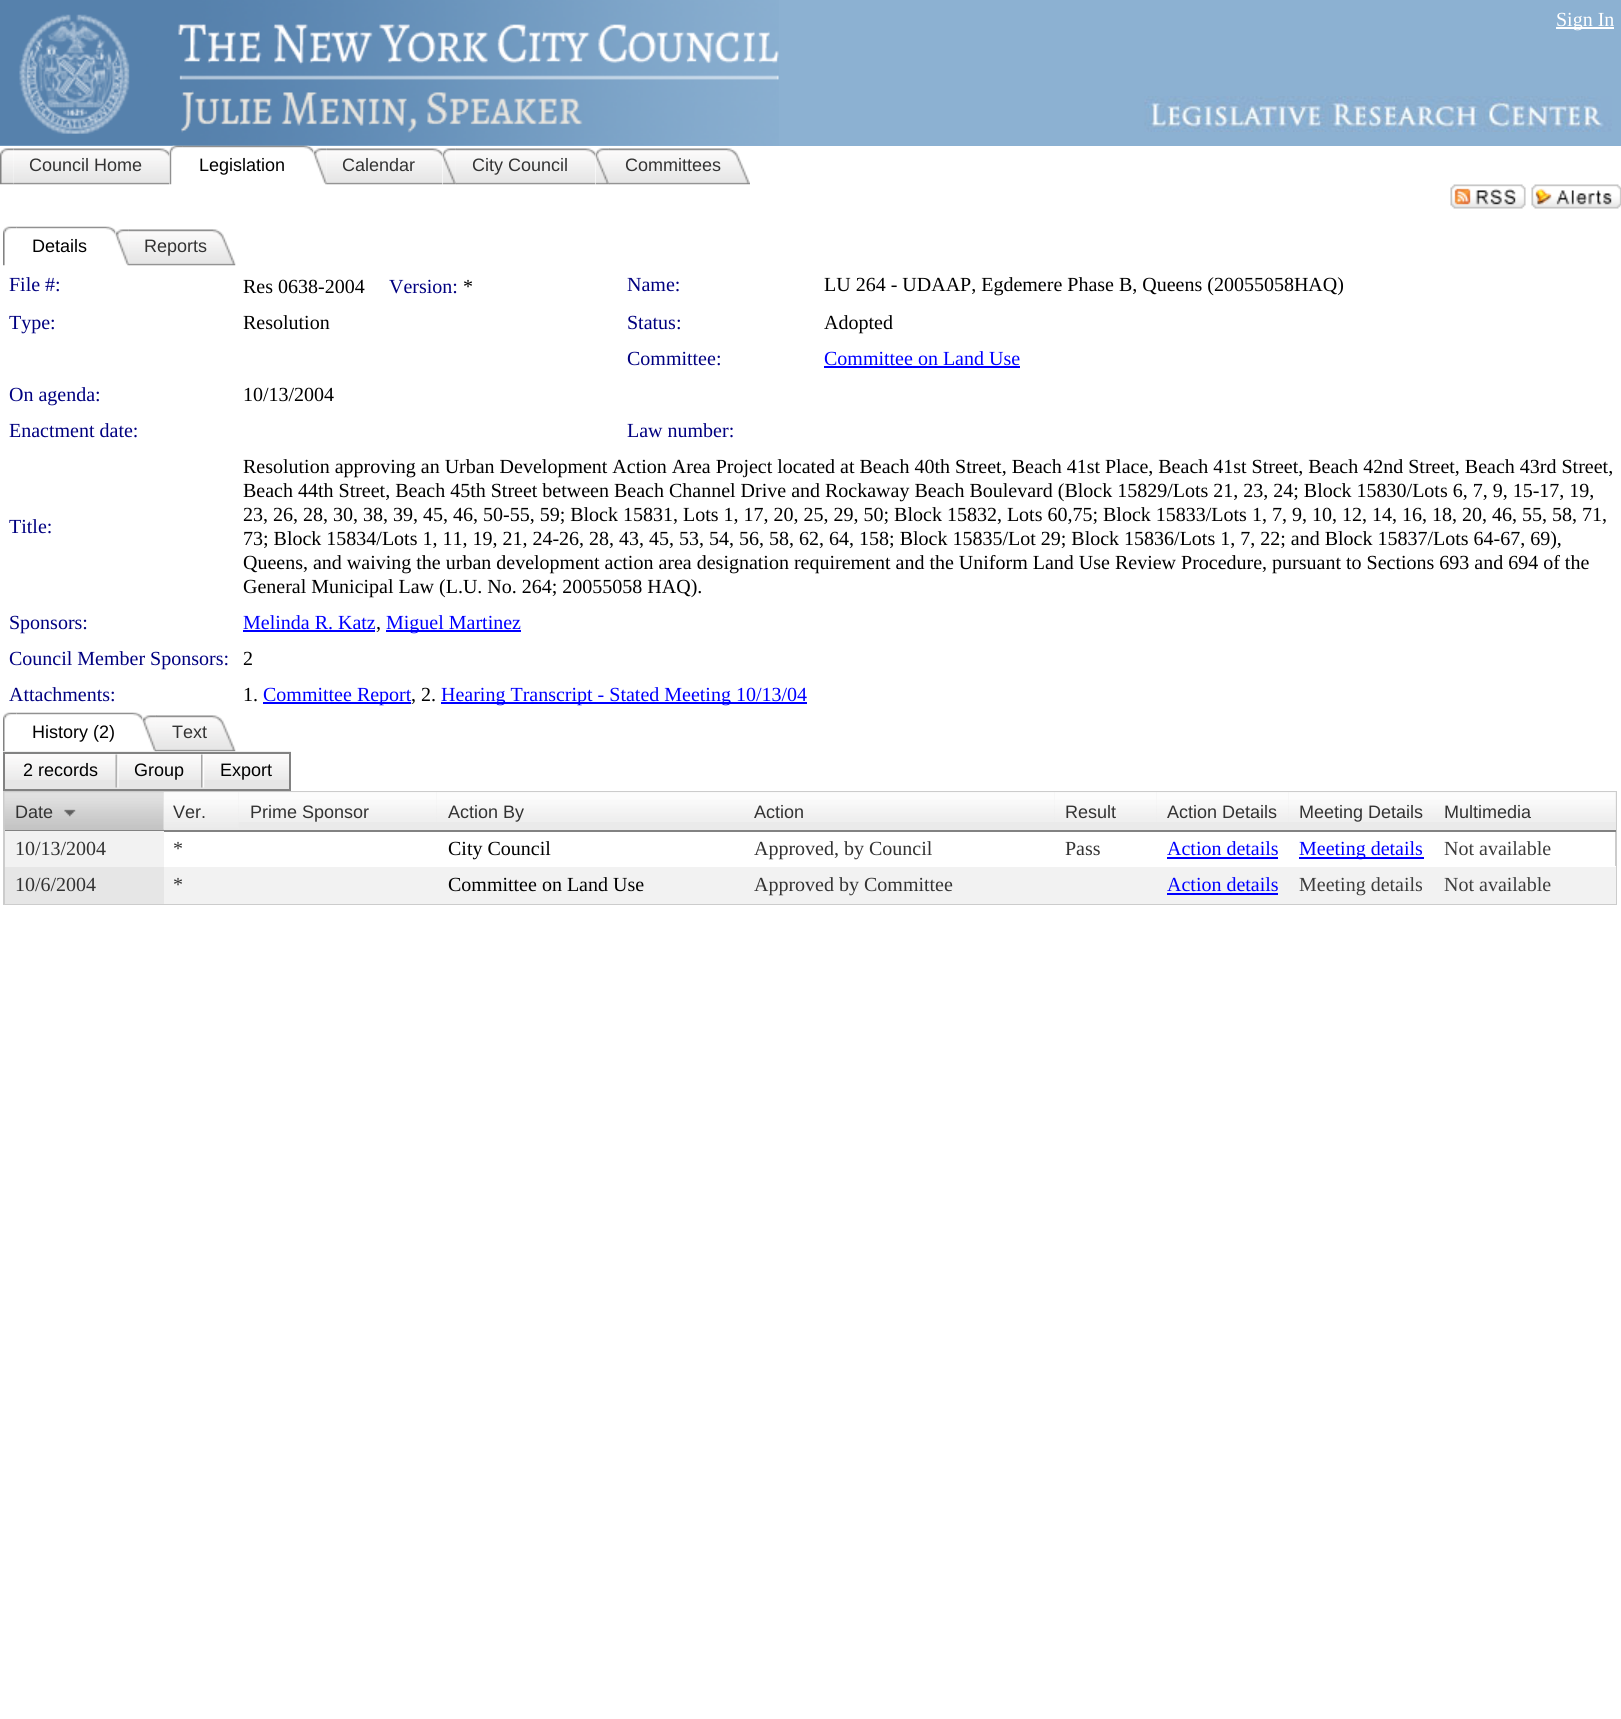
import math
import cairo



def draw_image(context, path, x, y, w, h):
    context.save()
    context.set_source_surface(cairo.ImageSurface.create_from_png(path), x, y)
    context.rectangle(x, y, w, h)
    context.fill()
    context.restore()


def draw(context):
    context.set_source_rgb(1, 1, 1)
    context.paint()
    context.set_source_rgb(140 / 255, 177 / 255, 210 / 255)
    context.rectangle(0, 0, 1621, 146)
    context.fill()
    draw_image(context, "images/1.png", 0, 0, 779, 146)
    draw_image(context, "images/2.png", 1144, 96, 468, 36)
    context.set_source_rgb(1, 1, 1)
    context.rectangle(1556, 27, 58, 2)
    context.fill()
    draw_image(context, "images/3.png", 0, 148, 14, 37)
    draw_image(context, "images/4.png", 13, 148, 157, 37)
    draw_image(context, "images/5.png", 169, 145, 15, 40)
    draw_image(context, "images/6.png", 183, 145, 131, 9)
    draw_image(context, "images/7.png", 313, 148, 15, 37)
    draw_image(context, "images/8.png", 327, 148, 116, 37)
    draw_image(context, "images/9.png", 442, 148, 15, 37)
    draw_image(context, "images/10.png", 456, 148, 140, 37)
    draw_image(context, "images/11.png", 595, 148, 15, 37)
    draw_image(context, "images/12.png", 609, 148, 141, 37)
    draw_image(context, "images/13.png", 1450, 184, 76, 25)
    draw_image(context, "images/14.png", 1531, 184, 90, 25)
    draw_image(context, "images/15.png", 3, 226, 14, 40)
    draw_image(context, "images/16.png", 16, 226, 100, 9)
    draw_image(context, "images/17.png", 115, 229, 15, 37)
    draw_image(context, "images/18.png", 129, 229, 107, 37)
    context.set_source_rgb(0, 0, 1)
    context.rectangle(824, 366, 196, 2)
    context.fill()
    context.rectangle(243, 630, 132, 2)
    context.fill()
    context.rectangle(386, 630, 135, 2)
    context.fill()
    context.rectangle(263, 702, 148, 2)
    context.fill()
    context.rectangle(441, 702, 366, 2)
    context.fill()
    draw_image(context, "images/19.png", 3, 712, 14, 40)
    draw_image(context, "images/20.png", 16, 712, 127, 9)
    draw_image(context, "images/21.png", 142, 715, 15, 37)
    draw_image(context, "images/22.png", 156, 715, 80, 37)
    context.set_source_rgb(230 / 255, 230 / 255, 230 / 255)
    context.rectangle(5, 780, 284, 9)
    context.fill()
    draw_image(context, "images/23.png", 3, 751, 288, 29)
    context.rectangle(4, 753, 286, 37)
    context.set_source_rgb(130 / 255, 130 / 255, 130 / 255)
    context.stroke()
    draw_image(context, "images/24.png", 115, 754, 4, 34)
    draw_image(context, "images/25.png", 201, 754, 4, 34)
    context.rectangle(4, 792, 1612, 112)
    context.set_source_rgb(204 / 255, 204 / 255, 204 / 255)
    context.stroke()
    context.set_source_rgb(196 / 255, 196 / 255, 196 / 255)
    context.rectangle(5, 792, 159, 38)
    context.fill()
    draw_image(context, "images/26.png", 4, 792, 160, 37)
    context.set_source_rgb(130 / 255, 130 / 255, 130 / 255)
    context.rectangle(5, 830, 159, 1)
    context.fill()
    draw_image(context, "images/27.png", 64, 809, 12, 8)
    context.set_source_rgb(234 / 255, 234 / 255, 234 / 255)
    context.rectangle(164, 792, 1452, 38)
    context.fill()
    draw_image(context, "images/28.png", 163, 792, 76, 38)
    context.set_source_rgb(130 / 255, 130 / 255, 130 / 255)
    context.rectangle(164, 830, 1452, 2)
    context.fill()
    draw_image(context, "images/29.png", 238, 792, 199, 30)
    draw_image(context, "images/30.png", 436, 792, 308, 30)
    draw_image(context, "images/31.png", 744, 792, 311, 30)
    draw_image(context, "images/32.png", 1054, 792, 103, 30)
    draw_image(context, "images/33.png", 1156, 792, 133, 30)
    draw_image(context, "images/34.png", 1288, 792, 146, 30)
    draw_image(context, "images/35.png", 1434, 792, 182, 30)
    context.set_source_rgb(242 / 255, 242 / 255, 242 / 255)
    context.rectangle(5, 831, 159, 36)
    context.fill()
    context.set_source_rgb(0, 0, 1)
    context.rectangle(1167, 857, 111, 2)
    context.fill()
    context.rectangle(1299, 857, 125, 2)
    context.fill()
    context.set_source_rgb(1, 1, 1)
    context.rectangle(1615, 866, 1, 1)
    context.fill()
    context.set_source_rgb(242 / 255, 242 / 255, 242 / 255)
    context.rectangle(164, 867, 1452, 35)
    context.fill()
    context.set_source_rgb(230 / 255, 230 / 255, 230 / 255)
    context.rectangle(5, 867, 159, 37)
    context.fill()
    context.set_source_rgb(242 / 255, 242 / 255, 242 / 255)
    context.rectangle(164, 902, 1452, 2)
    context.fill()
    context.set_source_rgb(0, 0, 1)
    context.rectangle(1167, 893, 111, 2)
    context.fill()
    context.select_font_face("Liberation Serif")
    context.set_font_size(20)
    context.set_source_rgb(1, 1, 1)
    context.move_to(1556, 26)
    context.show_text("Sign In")
    context.select_font_face("Liberation Sans")
    context.set_font_size(18)
    context.set_source_rgb(51 / 255, 51 / 255, 51 / 255)
    context.move_to(29, 171)
    context.show_text("Council Home")
    context.set_source_rgb(0, 0, 0)
    context.move_to(199, 171)
    context.show_text("Legislation")
    context.set_source_rgb(51 / 255, 51 / 255, 51 / 255)
    context.move_to(342, 171)
    context.show_text("Calendar")
    context.move_to(472, 171)
    context.show_text("City Council")
    context.move_to(625, 171)
    context.show_text("Committees")
    context.set_source_rgb(0, 0, 0)
    context.move_to(32, 252)
    context.show_text("Details")
    context.set_source_rgb(51 / 255, 51 / 255, 51 / 255)
    context.move_to(144, 252)
    context.show_text("Reports")
    context.select_font_face("Liberation Serif")
    context.set_font_size(20)
    context.set_source_rgb(0, 0, 128 / 255)
    context.move_to(9, 291)
    context.show_text("File #:")
    context.set_source_rgb(0, 0, 0)
    context.move_to(243, 293)
    context.show_text("Res 0638-2004")
    context.set_source_rgb(0, 0, 128 / 255)
    context.move_to(389, 293)
    context.show_text("Version:")
    context.set_source_rgb(0, 0, 0)
    context.move_to(463, 293)
    context.show_text("*")
    context.set_source_rgb(0, 0, 128 / 255)
    context.move_to(627, 291)
    context.show_text("Name:")
    context.set_source_rgb(0, 0, 0)
    context.move_to(824, 291)
    context.show_text("LU 264 - UDAAP, Egdemere Phase B, Queens (20055058HAQ)")
    context.set_source_rgb(0, 0, 128 / 255)
    context.move_to(9, 329)
    context.show_text("Type:")
    context.set_source_rgb(0, 0, 0)
    context.move_to(243, 329)
    context.show_text("Resolution")
    context.set_source_rgb(0, 0, 128 / 255)
    context.move_to(627, 329)
    context.show_text("Status:")
    context.set_source_rgb(0, 0, 0)
    context.move_to(824, 329)
    context.show_text("Adopted")
    context.set_source_rgb(0, 0, 128 / 255)
    context.move_to(627, 365)
    context.show_text("Committee:")
    context.set_source_rgb(0, 0, 1)
    context.move_to(824, 365)
    context.show_text("Committee on Land Use")
    context.set_source_rgb(0, 0, 128 / 255)
    context.move_to(9, 401)
    context.show_text("On agenda:")
    context.set_source_rgb(0, 0, 0)
    context.move_to(243, 401)
    context.show_text("10/13/2004")
    context.set_source_rgb(0, 0, 128 / 255)
    context.move_to(9, 437)
    context.show_text("Enactment date:")
    context.move_to(627, 437)
    context.show_text("Law number:")
    context.move_to(9, 533)
    context.show_text("Title:")
    context.set_source_rgb(0, 0, 0)
    context.move_to(243, 473)
    context.show_text("Resolution approving an Urban Development Action Area Project located at Beach 40th Street, Beach 41st Place, Beach 41st Street, Beach 42nd Street, Beach 43rd Street,")
    context.move_to(243, 497)
    context.show_text("Beach 44th Street, Beach 45th Street between Beach Channel Drive and Rockaway Beach Boulevard (Block 15829/Lots 21, 23, 24; Block 15830/Lots 6, 7, 9, 15-17, 19,")
    context.move_to(243, 521)
    context.show_text("23, 26, 28, 30, 38, 39, 45, 46, 50-55, 59; Block 15831, Lots 1, 17, 20, 25, 29, 50; Block 15832, Lots 60,75; Block 15833/Lots 1, 7, 9, 10, 12, 14, 16, 18, 20, 46, 55, 58, 71,")
    context.move_to(243, 545)
    context.show_text("73; Block 15834/Lots 1, 11, 19, 21, 24-26, 28, 43, 45, 53, 54, 56, 58, 62, 64, 158; Block 15835/Lot 29; Block 15836/Lots 1, 7, 22; and Block 15837/Lots 64-67, 69),")
    context.move_to(243, 569)
    context.show_text("Queens, and waiving the urban development action area designation requirement and the Uniform Land Use Review Procedure, pursuant to Sections 693 and 694 of the")
    context.move_to(243, 593)
    context.show_text("General Municipal Law (L.U. No. 264; 20055058 HAQ).")
    context.set_source_rgb(0, 0, 128 / 255)
    context.move_to(9, 629)
    context.show_text("Sponsors:")
    context.set_source_rgb(0, 0, 1)
    context.move_to(243, 629)
    context.show_text("Melinda R. Katz")
    context.set_source_rgb(0, 0, 0)
    context.move_to(376, 629)
    context.show_text(",")
    context.set_source_rgb(0, 0, 1)
    context.move_to(386, 629)
    context.show_text("Miguel Martinez")
    context.set_source_rgb(0, 0, 128 / 255)
    context.move_to(9, 665)
    context.show_text("Council Member Sponsors:")
    context.set_source_rgb(0, 0, 0)
    context.move_to(243, 665)
    context.show_text("2")
    context.set_source_rgb(0, 0, 128 / 255)
    context.move_to(9, 701)
    context.show_text("Attachments:")
    context.set_source_rgb(0, 0, 0)
    context.move_to(243, 701)
    context.show_text("1.")
    context.set_source_rgb(0, 0, 1)
    context.move_to(263, 701)
    context.show_text("Committee Report")
    context.set_source_rgb(0, 0, 0)
    context.move_to(411, 701)
    context.show_text(", 2.")
    context.set_source_rgb(0, 0, 1)
    context.move_to(441, 701)
    context.show_text("Hearing Transcript - Stated Meeting 10/13/04")
    context.select_font_face("Liberation Sans")
    context.set_font_size(18)
    context.set_source_rgb(0, 0, 0)
    context.move_to(32, 738)
    context.show_text("History (2)")
    context.set_source_rgb(51 / 255, 51 / 255, 51 / 255)
    context.move_to(172, 738)
    context.show_text("Text")
    context.set_source_rgb(0, 0, 0)
    context.move_to(23, 776)
    context.show_text("2 records")
    context.move_to(134, 776)
    context.show_text("Group")
    context.move_to(220, 776)
    context.show_text("Export")
    context.set_source_rgb(51 / 255, 51 / 255, 51 / 255)
    context.move_to(15, 818)
    context.show_text("Date")
    context.move_to(173, 818)
    context.show_text("Ver.")
    context.move_to(250, 818)
    context.show_text("Prime Sponsor")
    context.move_to(448, 818)
    context.show_text("Action By")
    context.move_to(754, 818)
    context.show_text("Action")
    context.move_to(1065, 818)
    context.show_text("Result")
    context.move_to(1167, 818)
    context.show_text("Action Details")
    context.move_to(1299, 818)
    context.show_text("Meeting Details")
    context.move_to(1444, 818)
    context.show_text("Multimedia")
    context.select_font_face("Liberation Serif")
    context.set_font_size(20)
    context.move_to(15, 855)
    context.show_text("10/13/2004")
    context.move_to(173, 855)
    context.show_text("*")
    context.set_source_rgb(0, 0, 0)
    context.move_to(448, 855)
    context.show_text("City Council")
    context.set_source_rgb(51 / 255, 51 / 255, 51 / 255)
    context.move_to(754, 855)
    context.show_text("Approved, by Council")
    context.move_to(1065, 855)
    context.show_text("Pass")
    context.set_source_rgb(0, 0, 1)
    context.move_to(1167, 855)
    context.show_text("Action details")
    context.move_to(1299, 855)
    context.show_text("Meeting details")
    context.set_source_rgb(61 / 255, 61 / 255, 61 / 255)
    context.move_to(1444, 855)
    context.show_text("Not available")
    context.set_source_rgb(51 / 255, 51 / 255, 51 / 255)
    context.move_to(15, 891)
    context.show_text("10/6/2004")
    context.move_to(173, 891)
    context.show_text("*")
    context.set_source_rgb(0, 0, 0)
    context.move_to(448, 891)
    context.show_text("Committee on Land Use")
    context.set_source_rgb(51 / 255, 51 / 255, 51 / 255)
    context.move_to(754, 891)
    context.show_text("Approved by Committee")
    context.set_source_rgb(0, 0, 1)
    context.move_to(1167, 891)
    context.show_text("Action details")
    context.set_source_rgb(61 / 255, 61 / 255, 61 / 255)
    context.move_to(1299, 891)
    context.show_text("Meeting details")
    context.move_to(1444, 891)
    context.show_text("Not available")


surface = cairo.ImageSurface(cairo.Format.RGB24, 1621, 1719)
context = cairo.Context(surface)
options = cairo.FontOptions()
options.set_hint_metrics(cairo.HintMetrics.OFF)
options.set_hint_style(cairo.HintStyle.NONE)
context.set_font_options(options)
context.set_miter_limit(4)
draw(context)
surface.write_to_png("out.png")
